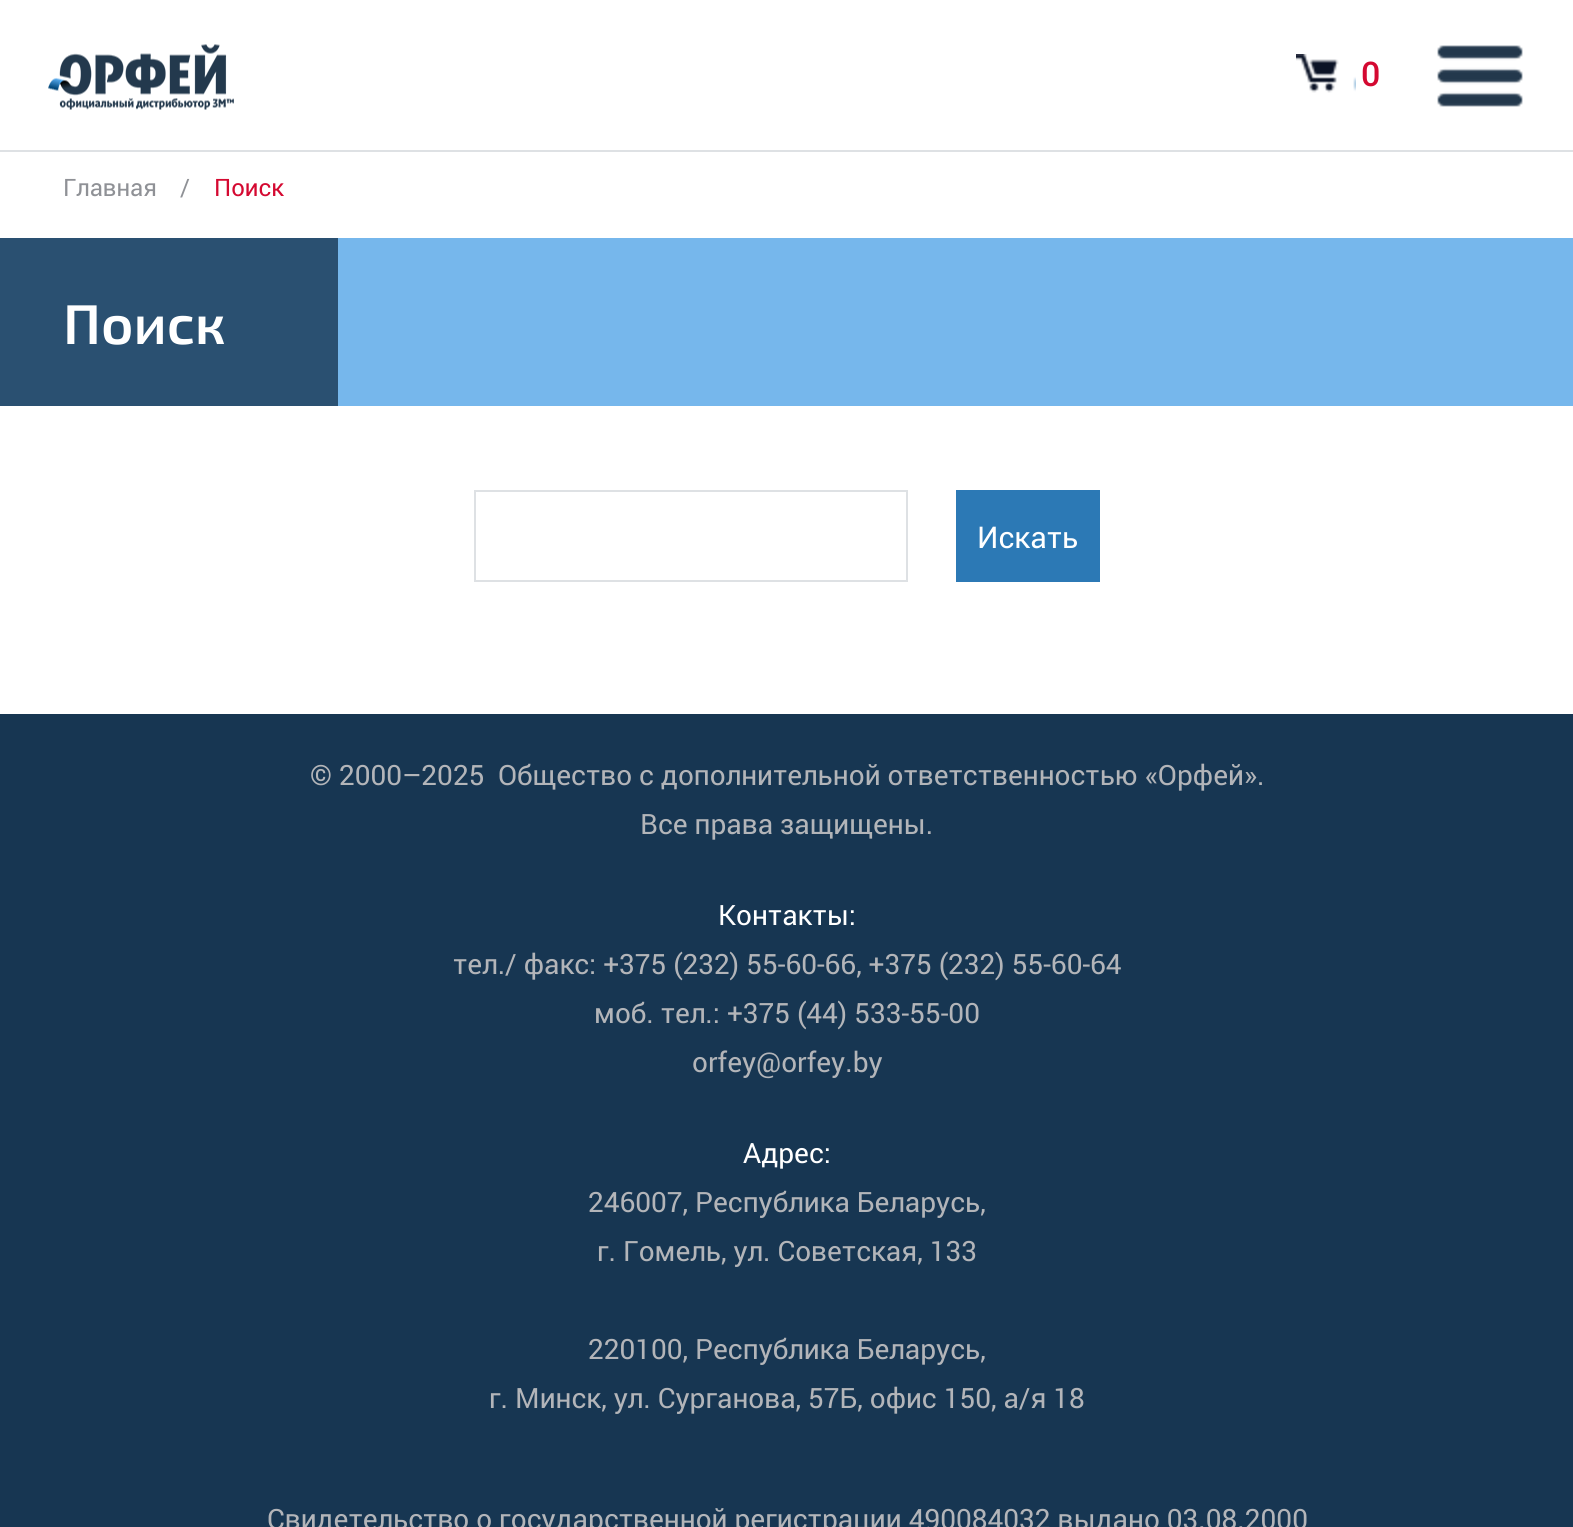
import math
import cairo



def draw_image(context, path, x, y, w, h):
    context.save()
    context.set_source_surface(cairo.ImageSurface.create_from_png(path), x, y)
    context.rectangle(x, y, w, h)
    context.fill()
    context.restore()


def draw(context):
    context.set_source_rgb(1, 1, 1)
    context.paint()
    draw_image(context, "images/1.png", 48, 44, 186, 66)
    draw_image(context, "images/2.png", 1296, 54, 60, 39)
    draw_image(context, "images/3.png", 1437, 45, 86, 62)
    context.set_source_rgb(222 / 255, 225 / 255, 228 / 255)
    context.rectangle(0, 150, 1573, 2)
    context.fill()
    context.set_source_rgb(118 / 255, 183 / 255, 236 / 255)
    context.rectangle(338, 238, 1235, 168)
    context.fill()
    context.set_source_rgb(42 / 255, 80 / 255, 113 / 255)
    context.rectangle(0, 238, 338, 168)
    context.fill()
    context.rectangle(475, 491, 432, 90)
    context.set_source_rgb(222 / 255, 225 / 255, 228 / 255)
    context.stroke()
    context.set_source_rgb(44 / 255, 121 / 255, 181 / 255)
    context.rectangle(956, 490, 144, 92)
    context.fill()
    context.set_source_rgb(23 / 255, 54 / 255, 82 / 255)
    context.rectangle(0, 714, 1573, 813)
    context.fill()
    context.select_font_face("Roboto Medium")
    context.set_font_size(34)
    context.set_source_rgb(212 / 255, 9 / 255, 49 / 255)
    context.move_to(1361, 86)
    context.show_text("0")
    context.select_font_face("Roboto")
    context.set_font_size(24)
    context.set_source_rgb(143 / 255, 145 / 255, 150 / 255)
    context.move_to(63, 196)
    context.show_text("Главная")
    context.move_to(180, 196)
    context.show_text("/")
    context.set_source_rgb(212 / 255, 9 / 255, 49 / 255)
    context.move_to(214, 196)
    context.show_text("Поиск")
    context.select_font_face("Exo 2 SemiBold")
    context.set_font_size(56)
    context.set_source_rgb(1, 1, 1)
    context.move_to(63, 344)
    context.show_text("Поиск")
    context.select_font_face("Roboto")
    context.set_font_size(30)
    context.move_to(977, 548)
    context.show_text("Искать")
    context.set_font_size(28)
    context.set_source_rgb(179 / 255, 181 / 255, 185 / 255)
    context.move_to(310, 785)
    context.show_text("© 2000–2025")
    context.move_to(498, 785)
    context.show_text("Общество с дополнительной ответственностью «Орфей».")
    context.move_to(640, 834)
    context.show_text("Все права защищены.")
    context.set_source_rgb(1, 1, 1)
    context.move_to(718, 925)
    context.show_text("Контакты:")
    context.set_source_rgb(179 / 255, 181 / 255, 185 / 255)
    context.move_to(453, 974)
    context.show_text("тел./ факс: +375 (232) 55-60-66, +375 (232) 55-60-64")
    context.move_to(594, 1023)
    context.show_text("моб. тел.: +375 (44) 533-55-00")
    context.move_to(692, 1072)
    context.show_text("orfey@orfey.by")
    context.set_source_rgb(1, 1, 1)
    context.move_to(743, 1163)
    context.show_text("Адрес:")
    context.set_source_rgb(179 / 255, 181 / 255, 185 / 255)
    context.move_to(588, 1212)
    context.show_text("246007, Республика Беларусь,")
    context.move_to(597, 1261)
    context.show_text("г. Гомель, ул. Советская, 133")
    context.move_to(588, 1359)
    context.show_text("220100, Республика Беларусь,")
    context.move_to(489, 1408)
    context.show_text("г. Минск, ул. Сурганова, 57Б, офис 150, а/я 18")
    context.move_to(267, 1529)
    context.show_text("Свидетельство о государственной регистрации 490084032 выдано 03.08.2000")


surface = cairo.ImageSurface(cairo.Format.RGB24, 1573, 1527)
context = cairo.Context(surface)
options = cairo.FontOptions()
options.set_hint_metrics(cairo.HintMetrics.OFF)
options.set_hint_style(cairo.HintStyle.NONE)
context.set_font_options(options)
context.set_miter_limit(4)
draw(context)
surface.write_to_png("out.png")
